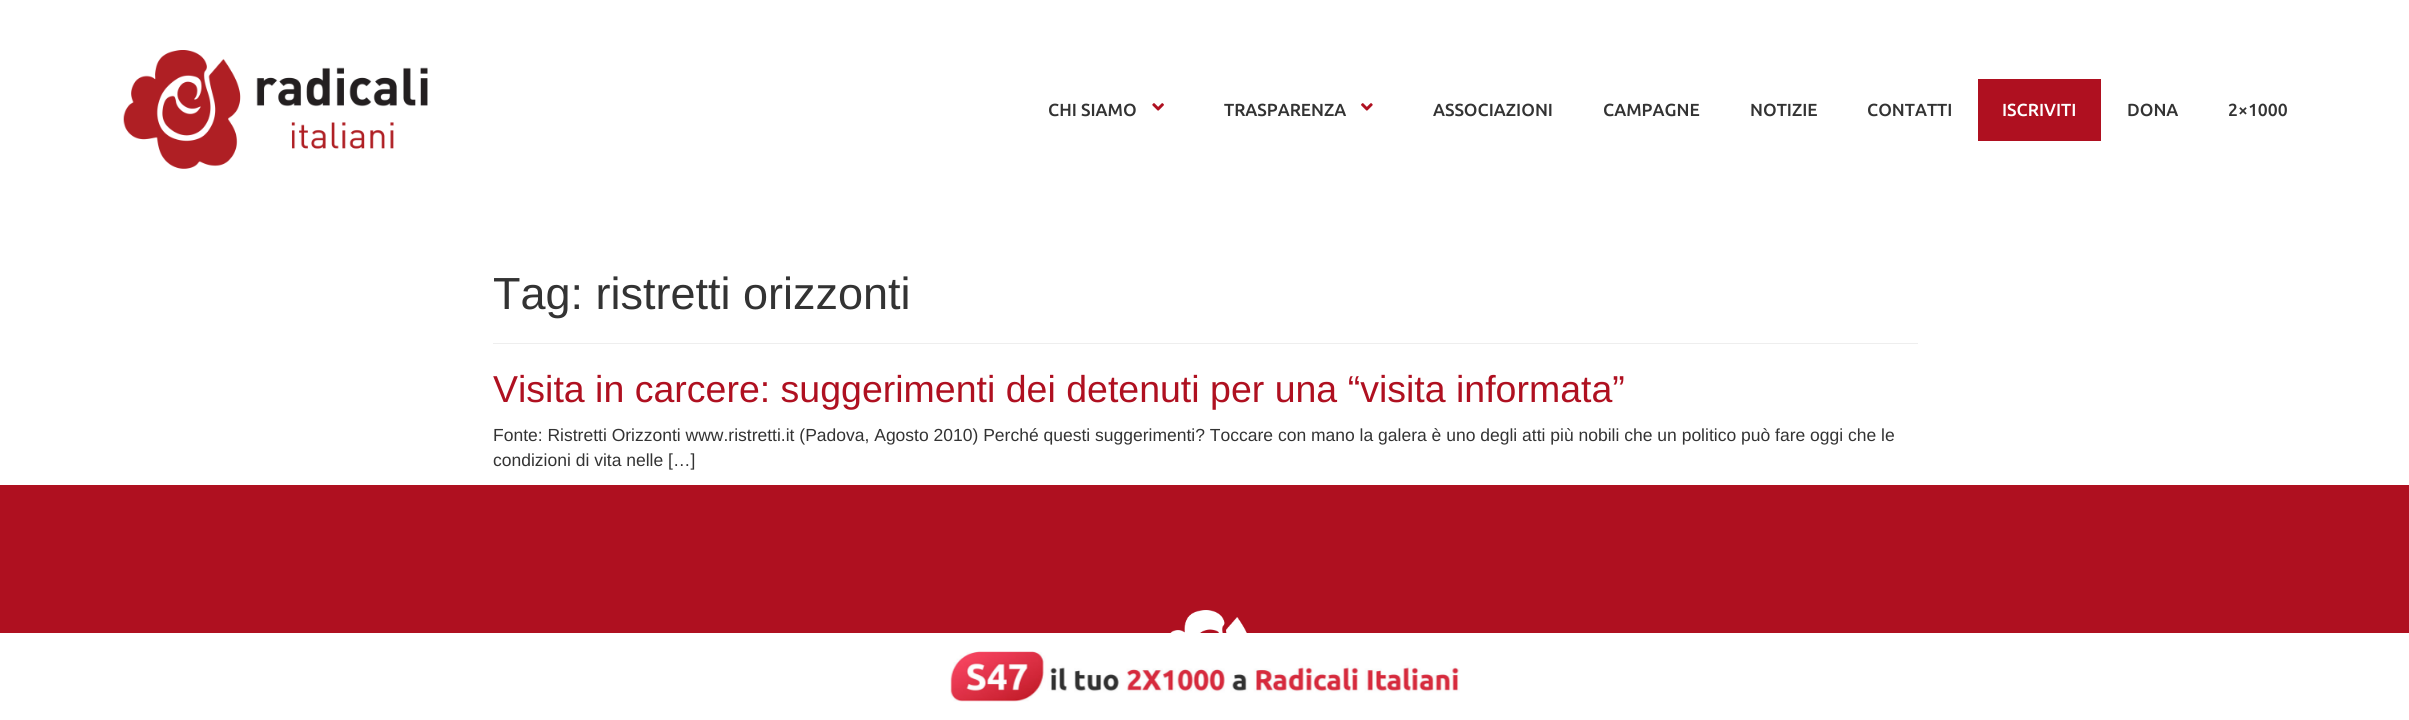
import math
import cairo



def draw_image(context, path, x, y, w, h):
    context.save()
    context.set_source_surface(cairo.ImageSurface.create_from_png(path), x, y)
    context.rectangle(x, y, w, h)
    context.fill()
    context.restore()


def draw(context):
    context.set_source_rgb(1, 1, 1)
    context.paint()
    draw_image(context, "images/1.png", 123, 50, 305, 119)
    draw_image(context, "images/2.png", 1152, 103, 12, 8)
    draw_image(context, "images/3.png", 1361, 103, 12, 8)
    context.set_source_rgb(175 / 255, 16 / 255, 32 / 255)
    context.rectangle(1978, 79, 123, 62)
    context.fill()
    context.set_source_rgb(238 / 255, 238 / 255, 238 / 255)
    context.rectangle(493, 343, 1425, 1)
    context.fill()
    context.set_source_rgb(175 / 255, 16 / 255, 32 / 255)
    context.rectangle(0, 485, 2409, 148)
    context.fill()
    draw_image(context, "images/4.png", 1170, 610, 77, 23)
    draw_image(context, "images/5.png", 950, 651, 510, 51)
    context.select_font_face("Ubuntu Medium")
    context.set_font_size(17.5)
    context.set_source_rgb(51 / 255, 51 / 255, 51 / 255)
    context.move_to(1048, 116)
    context.show_text("CHI SIAMO")
    context.move_to(1224, 116)
    context.show_text("TRASPARENZA")
    context.move_to(1433, 116)
    context.show_text("ASSOCIAZIONI")
    context.move_to(1603, 116)
    context.show_text("CAMPAGNE")
    context.move_to(1750, 116)
    context.show_text("NOTIZIE")
    context.move_to(1867, 116)
    context.show_text("CONTATTI")
    context.set_source_rgb(1, 1, 1)
    context.move_to(2002, 116)
    context.show_text("ISCRIVITI")
    context.set_source_rgb(51 / 255, 51 / 255, 51 / 255)
    context.move_to(2127, 116)
    context.show_text("DONA")
    context.move_to(2228, 116)
    context.show_text("2×1000")
    context.select_font_face("Liberation Sans")
    context.set_font_size(45)
    context.move_to(493, 309)
    context.show_text("Tag: ristretti orizzonti")
    context.set_font_size(37.5)
    context.set_source_rgb(175 / 255, 16 / 255, 32 / 255)
    context.move_to(493, 402)
    context.show_text("Visita in carcere: suggerimenti dei detenuti per una “visita informata”")
    context.set_font_size(17.5)
    context.set_source_rgb(51 / 255, 51 / 255, 51 / 255)
    context.move_to(493, 441)
    context.show_text("Fonte: Ristretti Orizzonti www.ristretti.it (Padova, Agosto 2010) Perché questi suggerimenti? Toccare con mano la galera è uno degli atti più nobili che un politico può fare oggi che le")
    context.move_to(493, 466)
    context.show_text("condizioni di vita nelle […]")


surface = cairo.ImageSurface(cairo.Format.RGB24, 2409, 720)
context = cairo.Context(surface)
options = cairo.FontOptions()
options.set_hint_metrics(cairo.HintMetrics.OFF)
options.set_hint_style(cairo.HintStyle.NONE)
context.set_font_options(options)
context.set_miter_limit(4)
draw(context)
surface.write_to_png("out.png")
